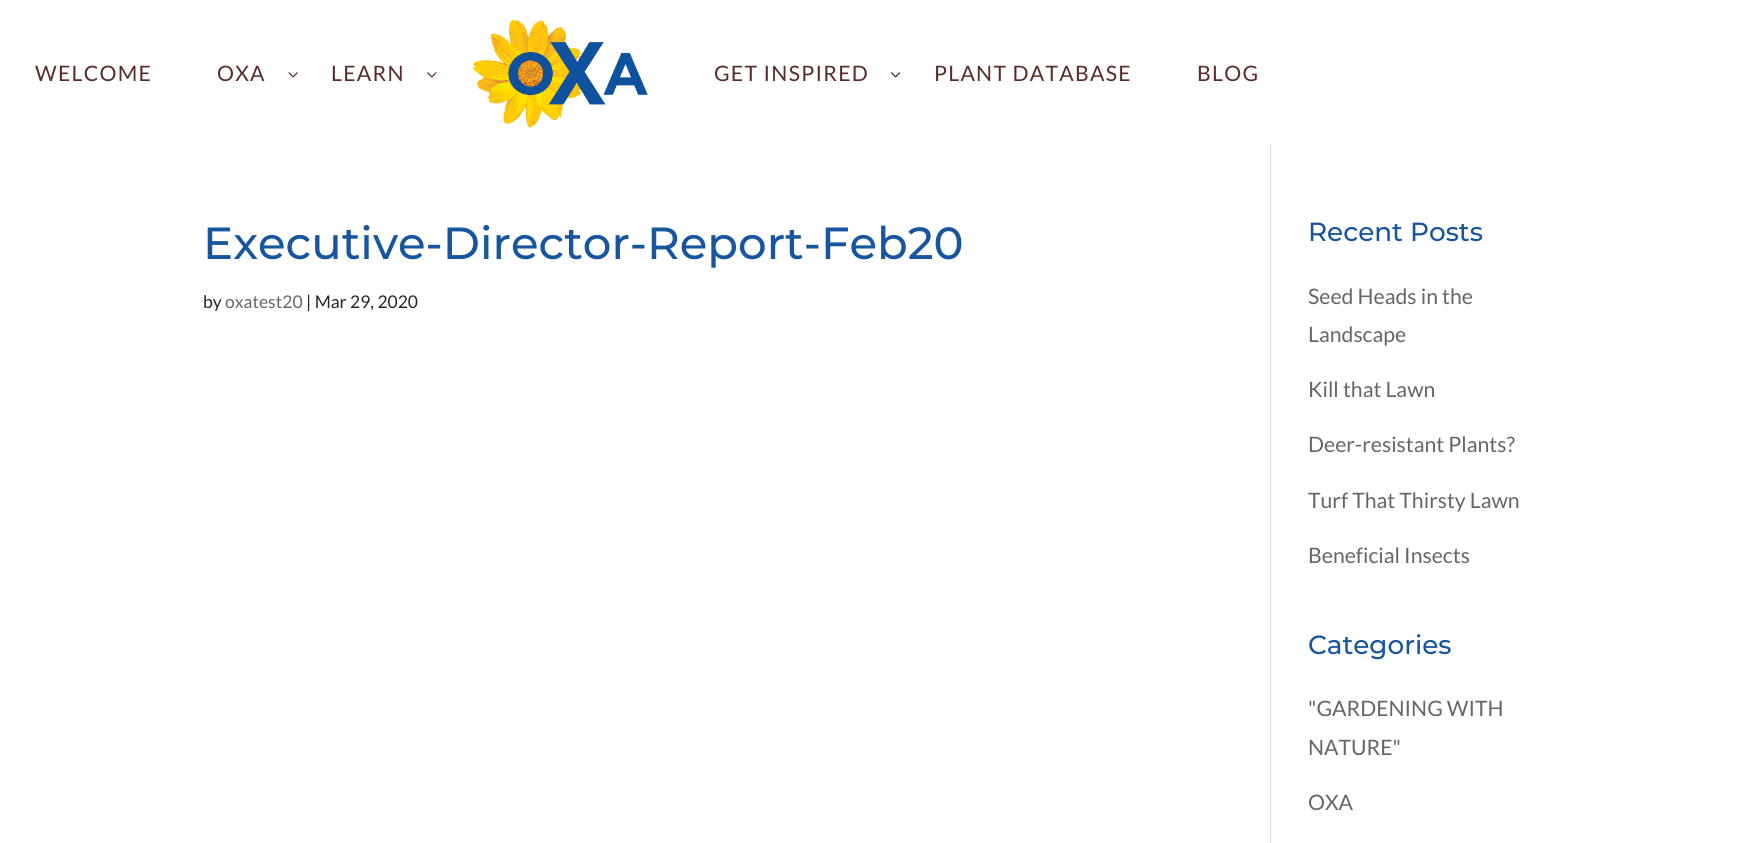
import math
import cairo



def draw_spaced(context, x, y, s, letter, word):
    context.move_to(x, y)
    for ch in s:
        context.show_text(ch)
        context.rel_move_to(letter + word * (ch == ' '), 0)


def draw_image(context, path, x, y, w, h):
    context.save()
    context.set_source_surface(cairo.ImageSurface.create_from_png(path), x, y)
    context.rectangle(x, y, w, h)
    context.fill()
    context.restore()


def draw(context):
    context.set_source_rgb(1, 1, 1)
    context.paint()
    draw_image(context, "images/1.png", 288, 72, 10, 6)
    draw_image(context, "images/2.png", 427, 72, 10, 6)
    draw_image(context, "images/3.png", 473, 19, 175, 109)
    draw_image(context, "images/4.png", 891, 72, 10, 6)
    context.set_source_rgb(226 / 255, 226 / 255, 226 / 255)
    context.rectangle(1270, 144, 1, 699)
    context.fill()
    context.select_font_face("Lato")
    context.set_font_size(21.25)
    context.set_source_rgb(90 / 255, 43 / 255, 43 / 255)
    draw_spaced(context, 35, 81, "WELCOME", 1.25, 0)
    draw_spaced(context, 217, 81, "OXA", 1.25, 0)
    draw_spaced(context, 331, 81, "LEARN", 1.25, 0)
    draw_spaced(context, 714, 81, "GET INSPIRED", 1.25, 0)
    draw_spaced(context, 934, 81, "PLANT DATABASE", 1.25, 0)
    draw_spaced(context, 1197, 81, "BLOG", 1.25, 0)
    context.select_font_face("Montserrat Medium")
    context.set_font_size(45)
    context.set_source_rgb(24 / 255, 85 / 255, 159 / 255)
    context.move_to(203, 259)
    context.show_text("Executive-Director-Report-Feb20")
    context.select_font_face("Lato")
    context.set_font_size(17.5)
    context.set_source_rgb(38 / 255, 38 / 255, 38 / 255)
    context.move_to(203, 308)
    context.show_text("by")
    context.set_source_rgb(102 / 255, 102 / 255, 102 / 255)
    context.move_to(225, 308)
    context.show_text("oxatest20")
    context.set_source_rgb(38 / 255, 38 / 255, 38 / 255)
    context.move_to(306, 308)
    context.show_text("| Mar 29, 2020")
    context.select_font_face("Montserrat Medium")
    context.set_font_size(26.25)
    context.set_source_rgb(24 / 255, 85 / 255, 159 / 255)
    context.move_to(1308, 241)
    context.show_text("Recent Posts")
    context.select_font_face("Lato")
    context.set_font_size(21.25)
    context.set_source_rgb(102 / 255, 102 / 255, 102 / 255)
    context.move_to(1308, 304)
    context.show_text("Seed Heads in the")
    context.move_to(1308, 342)
    context.show_text("Landscape")
    context.move_to(1308, 397)
    context.show_text("Kill that Lawn")
    context.move_to(1308, 452)
    context.show_text("Deer-resistant Plants?")
    context.move_to(1308, 508)
    context.show_text("Turf That Thirsty Lawn")
    context.move_to(1308, 563)
    context.show_text("Beneficial Insects")
    context.select_font_face("Montserrat Medium")
    context.set_font_size(26.25)
    context.set_source_rgb(24 / 255, 85 / 255, 159 / 255)
    context.move_to(1308, 654)
    context.show_text("Categories")
    context.select_font_face("Lato")
    context.set_font_size(21.25)
    context.set_source_rgb(102 / 255, 102 / 255, 102 / 255)
    context.move_to(1308, 716)
    context.show_text("\"GARDENING WITH")
    context.move_to(1308, 755)
    context.show_text("NATURE\"")
    context.move_to(1308, 810)
    context.show_text("OXA")


surface = cairo.ImageSurface(cairo.Format.RGB24, 1754, 843)
context = cairo.Context(surface)
options = cairo.FontOptions()
options.set_hint_metrics(cairo.HintMetrics.OFF)
options.set_hint_style(cairo.HintStyle.NONE)
context.set_font_options(options)
context.set_miter_limit(4)
draw(context)
surface.write_to_png("out.png")
